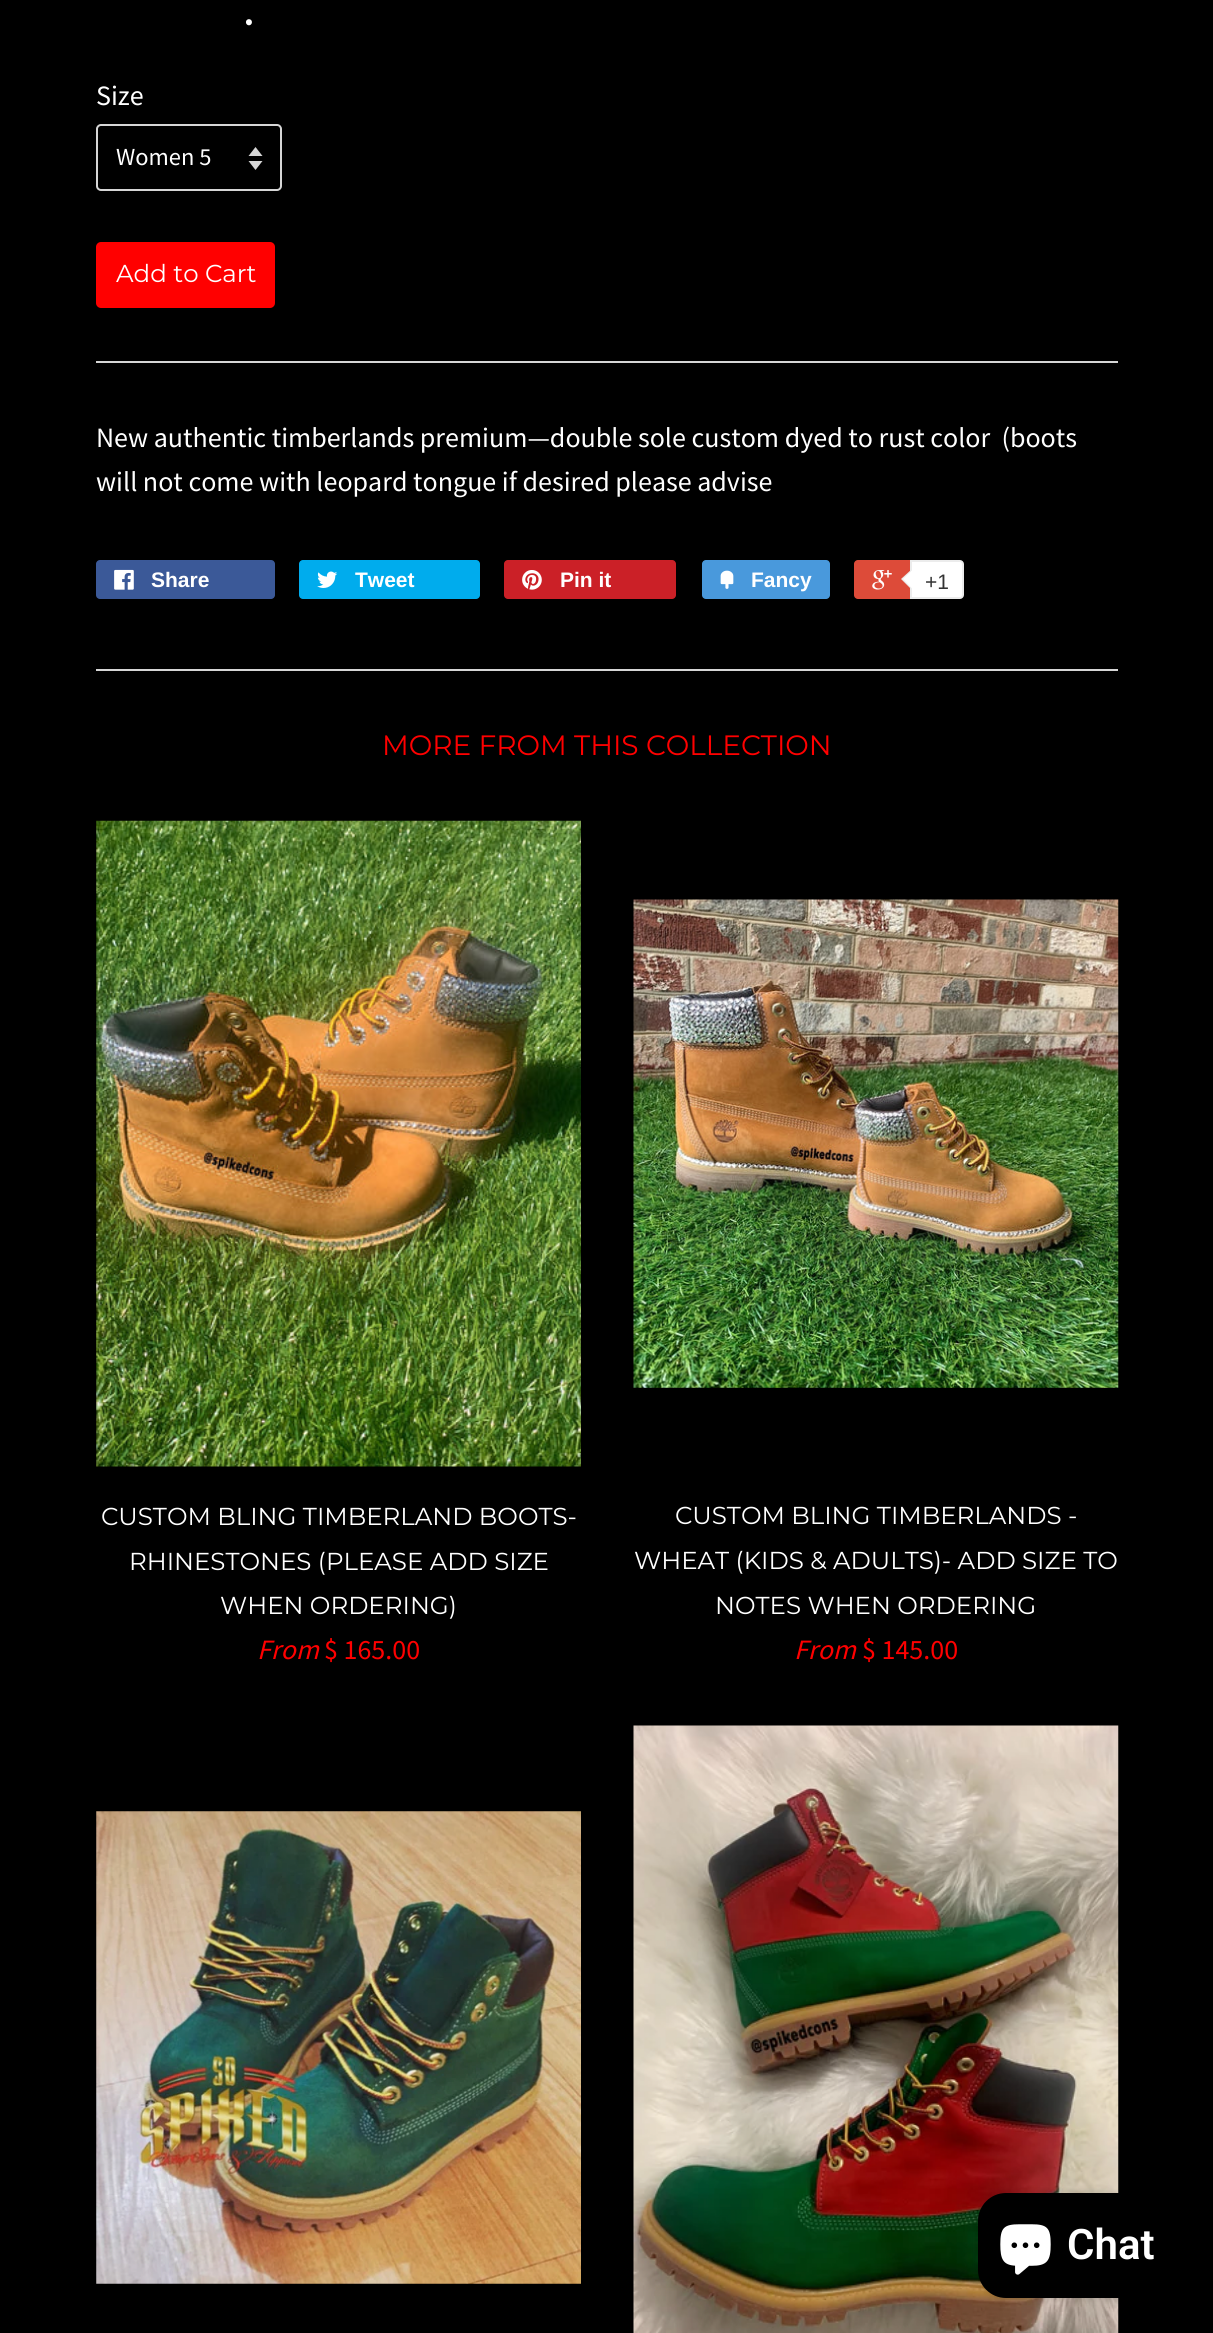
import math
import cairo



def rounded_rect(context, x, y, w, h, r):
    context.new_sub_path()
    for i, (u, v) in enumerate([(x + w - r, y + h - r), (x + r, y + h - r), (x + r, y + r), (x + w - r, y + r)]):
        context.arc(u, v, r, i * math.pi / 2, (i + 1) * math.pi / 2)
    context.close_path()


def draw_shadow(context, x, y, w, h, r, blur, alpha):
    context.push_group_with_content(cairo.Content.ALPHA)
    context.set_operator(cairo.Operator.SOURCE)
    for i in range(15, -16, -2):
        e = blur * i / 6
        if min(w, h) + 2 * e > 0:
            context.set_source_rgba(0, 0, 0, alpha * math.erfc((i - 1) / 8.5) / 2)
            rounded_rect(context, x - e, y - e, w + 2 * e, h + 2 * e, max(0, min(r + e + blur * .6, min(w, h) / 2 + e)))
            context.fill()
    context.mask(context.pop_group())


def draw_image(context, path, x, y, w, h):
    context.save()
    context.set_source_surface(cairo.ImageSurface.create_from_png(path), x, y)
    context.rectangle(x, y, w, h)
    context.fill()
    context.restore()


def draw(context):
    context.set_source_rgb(0, 0, 0)
    context.paint()
    context.set_source_rgb(214 / 255, 214 / 255, 214 / 255)
    context.new_path()
    context.move_to(248.5, 161)
    context.line_to(255.5, 170)
    context.line_to(262.5, 161)
    context.close_path()
    context.move_to(255.5, 147)
    context.line_to(248.5, 156)
    context.line_to(262.5, 156)
    context.close_path()
    context.fill()
    rounded_rect(context, 97, 125, 184, 65, 4)
    context.stroke()
    context.set_source_rgb(1, 0, 0)
    rounded_rect(context, 96, 242, 179, 66, 5)
    context.fill()
    context.set_source_rgb(214 / 255, 214 / 255, 214 / 255)
    context.rectangle(96, 361, 1022, 2)
    context.fill()
    context.set_source_rgb(59 / 255, 89 / 255, 152 / 255)
    rounded_rect(context, 96, 560, 179, 39, 4)
    context.fill()
    draw_image(context, "images/1.png", 114, 569, 20, 21)
    context.set_source_rgb(0, 172 / 255, 237 / 255)
    rounded_rect(context, 299, 560, 181, 39, 4)
    context.fill()
    draw_image(context, "images/2.png", 317, 571, 21, 17)
    context.set_source_rgb(203 / 255, 32 / 255, 39 / 255)
    rounded_rect(context, 504, 560, 172, 39, 4)
    context.fill()
    draw_image(context, "images/3.png", 522, 570, 20, 20)
    context.set_source_rgb(73 / 255, 153 / 255, 220 / 255)
    rounded_rect(context, 702, 560, 128, 39, 4)
    context.fill()
    draw_image(context, "images/4.png", 720, 570, 14, 19)
    context.set_source_rgb(221 / 255, 75 / 255, 57 / 255)
    rounded_rect(context, 854, 560, 107, 39, 4)
    context.fill()
    draw_image(context, "images/5.png", 872, 570, 20, 20)
    context.set_source_rgb(1, 1, 1)
    context.new_path()
    context.move_to(911, 561)
    context.line_to(960, 561)
    context.curve_to(961.5, 561, 963, 562.5, 963, 564)
    context.line_to(963, 595)
    context.curve_to(963, 596.5, 961.5, 598, 960, 598)
    context.line_to(911, 598)
    context.close_path()
    context.fill_preserve()
    context.set_source_rgb(236 / 255, 236 / 255, 236 / 255)
    context.stroke()
    context.new_path()
    context.move_to(912, 569)
    context.line_to(912, 590)
    context.line_to(901, 579)
    context.close_path()
    context.fill()
    context.set_source_rgb(1, 1, 1)
    context.new_path()
    context.move_to(913.5, 569)
    context.line_to(913.5, 590)
    context.line_to(903, 579)
    context.close_path()
    context.fill()
    context.set_source_rgb(214 / 255, 214 / 255, 214 / 255)
    context.rectangle(96, 669, 1022, 2)
    context.fill()
    draw_image(context, "images/6.png", 96, 820, 485, 647)
    draw_image(context, "images/7.png", 633, 899, 486, 489)
    draw_image(context, "images/8.png", 96, 1811, 485, 473)
    draw_image(context, "images/9.png", 633, 1725, 486, 608)
    context.set_source_rgb(0, 0, 0)
    draw_shadow(context, 978, 2193, 198, 105, 28, 4.5, 0.15)
    context.set_source_rgb(0, 0, 0)
    rounded_rect(context, 978, 2193, 198, 105, 28)
    context.fill()
    draw_image(context, "images/10.png", 1000, 2224, 51, 51)
    context.select_font_face("Montserrat Thin")
    context.set_font_size(56)
    context.set_source_rgb(1, 1, 1)
    context.move_to(243, 25)
    context.show_text(".")
    context.select_font_face("Source Sans Pro")
    context.set_font_size(28)
    context.move_to(96, 105)
    context.show_text("Size")
    context.set_font_size(24.5)
    context.move_to(116, 165)
    context.show_text("Women 5")
    context.select_font_face("Montserrat Thin")
    context.move_to(116, 282)
    context.show_text("Add to Cart")
    context.select_font_face("Source Sans Pro")
    context.set_font_size(28)
    context.move_to(96, 447)
    context.show_text("New authentic timberlands premium—double sole custom dyed to rust color  (boots")
    context.move_to(96, 491)
    context.show_text("will not come with leopard tongue if desired please advise")
    context.select_font_face("Liberation Sans", cairo.FontSlant.NORMAL, cairo.FontWeight.BOLD)
    context.set_font_size(21)
    context.move_to(151, 587)
    context.show_text("Share")
    context.move_to(355, 587)
    context.show_text("Tweet")
    context.move_to(560, 587)
    context.show_text("Pin it")
    context.move_to(751, 587)
    context.show_text("Fancy")
    context.select_font_face("Liberation Sans")
    context.set_source_rgb(51 / 255, 51 / 255, 51 / 255)
    context.move_to(925, 589)
    context.show_text("+1")
    context.select_font_face("Montserrat Thin")
    context.set_font_size(28)
    context.set_source_rgb(1, 0, 0)
    context.move_to(382, 755)
    context.show_text("MORE FROM THIS COLLECTION")
    context.set_font_size(24.5)
    context.set_source_rgb(1, 1, 1)
    context.move_to(101, 1525)
    context.show_text("CUSTOM BLING TIMBERLAND BOOTS-")
    context.move_to(129, 1570)
    context.show_text("RHINESTONES (PLEASE ADD SIZE")
    context.move_to(220, 1614)
    context.show_text("WHEN ORDERING)")
    context.select_font_face("Source Sans Pro", cairo.FontSlant.ITALIC)
    context.set_font_size(28)
    context.set_source_rgb(1, 0, 0)
    context.move_to(257, 1659)
    context.show_text("From")
    context.select_font_face("Source Sans Pro")
    context.move_to(324, 1659)
    context.show_text("$ 165.00")
    context.select_font_face("Montserrat Thin")
    context.set_font_size(24.5)
    context.set_source_rgb(1, 1, 1)
    context.move_to(675, 1524)
    context.show_text("CUSTOM BLING TIMBERLANDS -")
    context.move_to(634, 1569)
    context.show_text("WHEAT (KIDS & ADULTS)- ADD SIZE TO")
    context.move_to(715, 1614)
    context.show_text("NOTES WHEN ORDERING")
    context.select_font_face("Source Sans Pro", cairo.FontSlant.ITALIC)
    context.set_font_size(28)
    context.set_source_rgb(1, 0, 0)
    context.move_to(794, 1659)
    context.show_text("From")
    context.select_font_face("Source Sans Pro")
    context.move_to(862, 1659)
    context.show_text("$ 145.00")
    context.select_font_face("Roboto SemiBold")
    context.set_font_size(42)
    context.set_source_rgb(1, 1, 1)
    context.move_to(1067, 2259)
    context.show_text("Chat")


surface = cairo.ImageSurface(cairo.Format.RGB24, 1213, 2333)
context = cairo.Context(surface)
options = cairo.FontOptions()
options.set_hint_metrics(cairo.HintMetrics.OFF)
options.set_hint_style(cairo.HintStyle.NONE)
context.set_font_options(options)
context.set_miter_limit(4)
draw(context)
surface.write_to_png("out.png")
